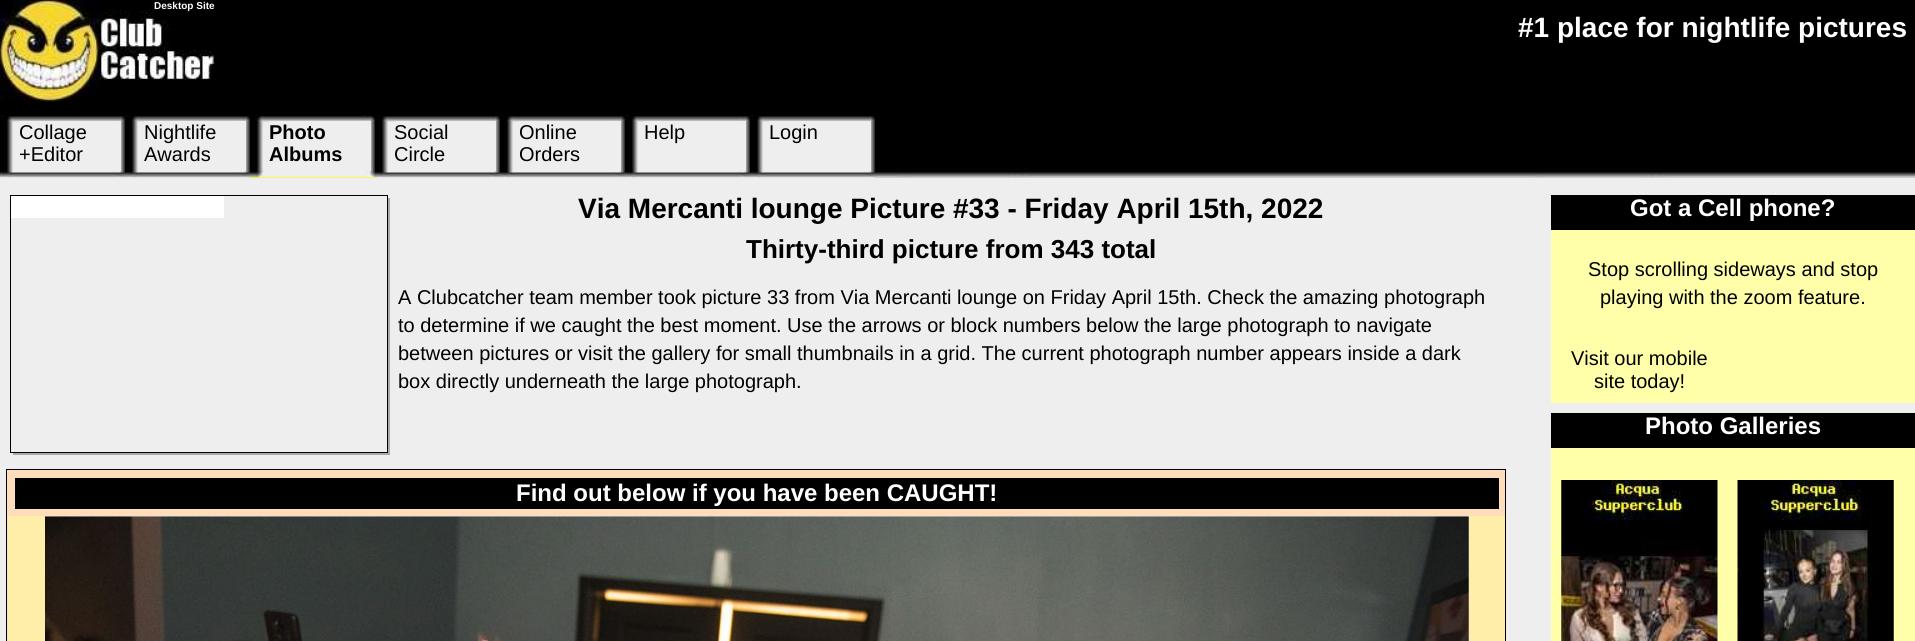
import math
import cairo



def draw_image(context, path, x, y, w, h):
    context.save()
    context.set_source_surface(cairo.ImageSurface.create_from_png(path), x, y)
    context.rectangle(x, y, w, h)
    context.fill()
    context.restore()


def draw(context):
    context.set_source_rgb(238 / 255, 238 / 255, 238 / 255)
    context.paint()
    context.set_source_rgb(0, 0, 0)
    context.rectangle(0, 0, 1915, 115)
    context.fill()
    draw_image(context, "images/1.png", 0, 0, 215, 102)
    draw_image(context, "images/2.png", 875, 115, 1040, 63)
    draw_image(context, "images/3.png", 0, 115, 125, 63)
    context.set_source_rgb(238 / 255, 238 / 255, 238 / 255)
    context.rectangle(19, 121, 102, 50)
    context.fill()
    draw_image(context, "images/3.png", 125, 115, 125, 63)
    context.rectangle(144, 121, 102, 50)
    context.fill()
    context.set_source_rgb(1, 1, 0)
    context.rectangle(250, 177, 125, 1)
    context.fill()
    draw_image(context, "images/4.png", 250, 115, 125, 63)
    context.set_source_rgb(238 / 255, 238 / 255, 238 / 255)
    context.rectangle(269, 121, 102, 50)
    context.fill()
    draw_image(context, "images/3.png", 375, 115, 125, 63)
    context.rectangle(394, 121, 102, 50)
    context.fill()
    draw_image(context, "images/5.png", 500, 115, 125, 63)
    context.rectangle(519, 121, 102, 50)
    context.fill()
    draw_image(context, "images/3.png", 625, 115, 125, 63)
    context.rectangle(644, 121, 102, 50)
    context.fill()
    draw_image(context, "images/6.png", 750, 115, 125, 63)
    context.rectangle(769, 121, 102, 50)
    context.fill()
    context.set_source_rgb(170 / 255, 170 / 255, 170 / 255)
    context.new_path()
    context.move_to(13, 452)
    context.line_to(13, 455)
    context.line_to(390, 455)
    context.line_to(390, 198)
    context.line_to(388, 198)
    context.line_to(388, 452)
    context.close_path()
    context.fill()
    context.rectangle(10.5, 195.5, 377, 257)
    context.set_source_rgb(0, 0, 0)
    context.set_line_width(1)
    context.stroke()
    context.set_source_rgb(1, 1, 1)
    context.rectangle(11, 196, 213, 22)
    context.fill()
    context.set_source_rgb(1, 221 / 255, 187 / 255)
    context.rectangle(6.5, 469.5, 1499, 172)
    context.fill_preserve()
    context.set_source_rgb(0, 0, 0)
    context.stroke()
    context.rectangle(15, 478, 1484, 31)
    context.fill()
    context.set_source_rgb(1, 238 / 255, 170 / 255)
    context.rectangle(8, 516, 1497, 125)
    context.fill()
    context.set_source_rgb(238 / 255, 238 / 255, 238 / 255)
    context.rectangle(45, 516, 1424, 125)
    context.fill()
    draw_image(context, "images/7.png", 45, 516, 1424, 125)
    context.set_source_rgb(0, 0, 0)
    context.rectangle(1551, 195, 364, 35)
    context.fill()
    context.set_source_rgb(1, 1, 170 / 255)
    context.rectangle(1551, 230, 364, 173)
    context.fill()
    context.set_source_rgb(0, 0, 0)
    context.rectangle(1551, 413, 364, 35)
    context.fill()
    context.set_source_rgb(1, 1, 170 / 255)
    context.rectangle(1551, 448, 364, 193)
    context.fill()
    draw_image(context, "images/8.png", 1561, 480, 157, 161)
    draw_image(context, "images/9.png", 1737, 480, 157, 161)
    context.select_font_face("Liberation Sans", cairo.FontSlant.NORMAL, cairo.FontWeight.BOLD)
    context.set_font_size(10)
    context.set_source_rgb(1, 1, 1)
    context.move_to(154, 9)
    context.show_text("Desktop Site")
    context.set_font_size(28)
    context.move_to(1518, 37)
    context.show_text("#1 place for nightlife pictures")
    context.select_font_face("Liberation Sans")
    context.set_font_size(20)
    context.set_source_rgb(0, 0, 0)
    context.move_to(19, 139)
    context.show_text("Collage")
    context.move_to(19, 161)
    context.show_text("+Editor")
    context.move_to(144, 139)
    context.show_text("Nightlife")
    context.move_to(144, 161)
    context.show_text("Awards")
    context.select_font_face("Liberation Sans", cairo.FontSlant.NORMAL, cairo.FontWeight.BOLD)
    context.move_to(269, 139)
    context.show_text("Photo")
    context.move_to(269, 161)
    context.show_text("Albums")
    context.select_font_face("Liberation Sans")
    context.move_to(394, 139)
    context.show_text("Social")
    context.move_to(394, 161)
    context.show_text("Circle")
    context.move_to(519, 139)
    context.show_text("Online")
    context.move_to(519, 161)
    context.show_text("Orders")
    context.move_to(644, 139)
    context.show_text("Help")
    context.move_to(769, 139)
    context.show_text("Login")
    context.select_font_face("Liberation Sans", cairo.FontSlant.NORMAL, cairo.FontWeight.BOLD)
    context.set_font_size(28)
    context.move_to(578, 218)
    context.show_text("Via Mercanti lounge Picture #33 - Friday April 15th, 2022")
    context.set_font_size(26)
    context.move_to(746, 258)
    context.show_text("Thirty-third picture from 343 total")
    context.select_font_face("Liberation Sans")
    context.set_font_size(20)
    context.move_to(398, 304)
    context.show_text("A Clubcatcher team member took picture 33 from Via Mercanti lounge on Friday April 15th. Check the amazing photograph")
    context.move_to(398, 332)
    context.show_text("to determine if we caught the best moment. Use the arrows or block numbers below the large photograph to navigate")
    context.move_to(398, 360)
    context.show_text("between pictures or visit the gallery for small thumbnails in a grid. The current photograph number appears inside a dark")
    context.move_to(398, 388)
    context.show_text("box directly underneath the large photograph.")
    context.select_font_face("Liberation Sans", cairo.FontSlant.NORMAL, cairo.FontWeight.BOLD)
    context.set_font_size(24)
    context.set_source_rgb(1, 1, 1)
    context.move_to(516, 501)
    context.show_text("Find out below if you have been CAUGHT!")
    context.move_to(1630, 216)
    context.show_text("Got a Cell phone?")
    context.select_font_face("Liberation Sans")
    context.set_font_size(20)
    context.set_source_rgb(0, 0, 0)
    context.move_to(1588, 276)
    context.show_text("Stop scrolling sideways and stop")
    context.move_to(1600, 304)
    context.show_text("playing with the zoom feature.")
    context.move_to(1571, 365)
    context.show_text("Visit our mobile")
    context.move_to(1594, 388)
    context.show_text("site today!")
    context.select_font_face("Liberation Sans", cairo.FontSlant.NORMAL, cairo.FontWeight.BOLD)
    context.set_font_size(24)
    context.set_source_rgb(1, 1, 1)
    context.move_to(1645, 434)
    context.show_text("Photo Galleries")


surface = cairo.ImageSurface(cairo.Format.RGB24, 1915, 641)
context = cairo.Context(surface)
options = cairo.FontOptions()
options.set_hint_metrics(cairo.HintMetrics.OFF)
options.set_hint_style(cairo.HintStyle.NONE)
context.set_font_options(options)
context.set_miter_limit(4)
draw(context)
surface.write_to_png("out.png")
